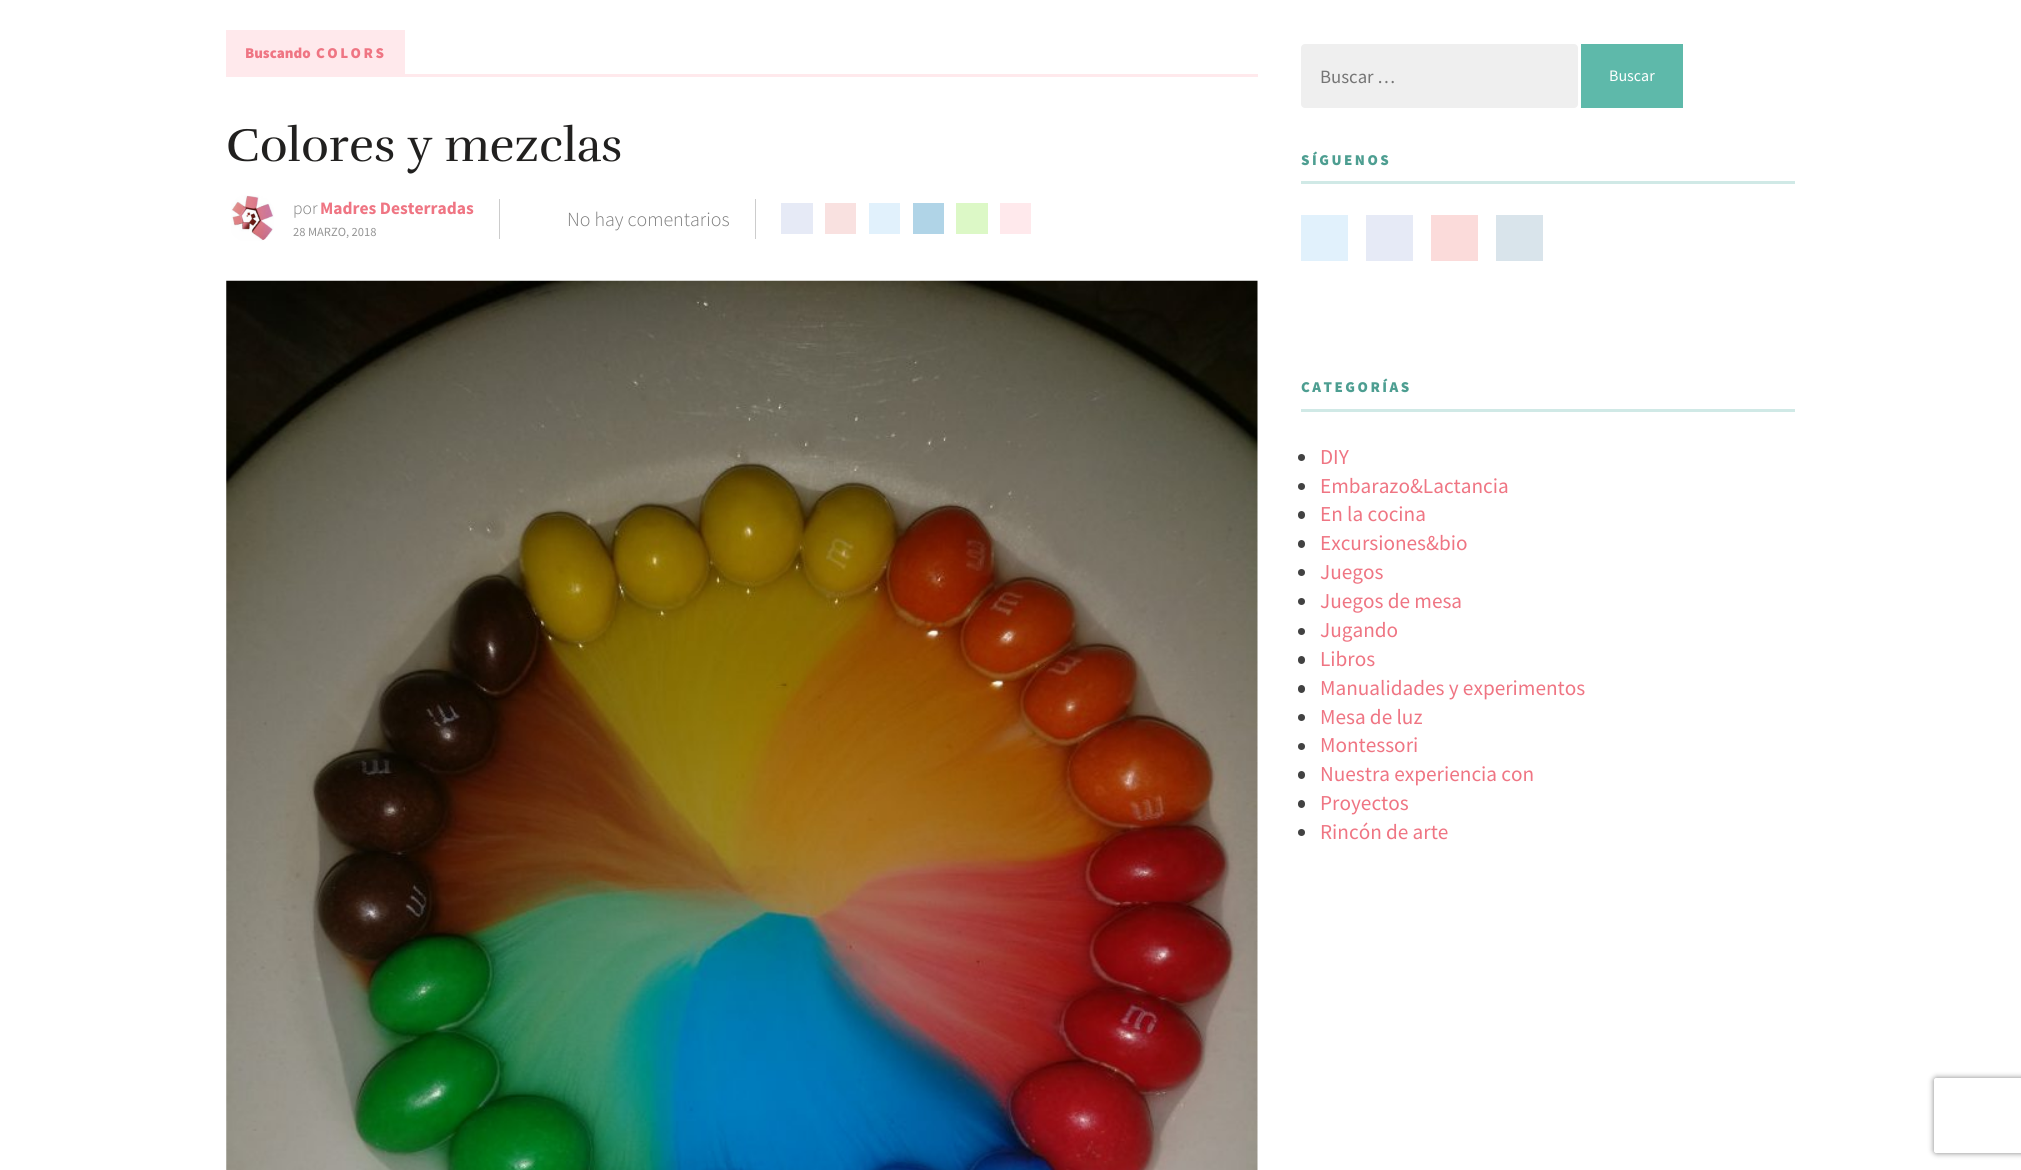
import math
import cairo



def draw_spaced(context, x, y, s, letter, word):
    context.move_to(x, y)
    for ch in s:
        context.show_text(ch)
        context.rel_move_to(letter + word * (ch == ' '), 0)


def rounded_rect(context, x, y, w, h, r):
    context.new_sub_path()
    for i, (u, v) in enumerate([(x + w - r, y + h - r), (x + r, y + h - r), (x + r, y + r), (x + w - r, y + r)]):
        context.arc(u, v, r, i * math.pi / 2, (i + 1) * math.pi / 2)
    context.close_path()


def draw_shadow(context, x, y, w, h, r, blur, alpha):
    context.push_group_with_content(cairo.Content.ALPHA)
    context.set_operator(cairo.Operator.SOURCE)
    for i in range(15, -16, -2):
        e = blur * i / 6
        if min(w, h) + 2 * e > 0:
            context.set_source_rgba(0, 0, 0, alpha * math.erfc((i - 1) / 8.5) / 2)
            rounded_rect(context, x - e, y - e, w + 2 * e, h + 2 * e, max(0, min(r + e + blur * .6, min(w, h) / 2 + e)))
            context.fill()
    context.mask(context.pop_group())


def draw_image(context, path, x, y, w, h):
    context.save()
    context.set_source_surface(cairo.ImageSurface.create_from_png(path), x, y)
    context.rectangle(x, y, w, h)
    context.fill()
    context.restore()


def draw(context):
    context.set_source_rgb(1, 1, 1)
    context.paint()
    context.set_source_rgb(1, 233 / 255, 236 / 255)
    context.rectangle(226, 74, 1032, 3)
    context.fill()
    context.rectangle(226, 30, 179, 44)
    context.fill()
    draw_image(context, "images/1.png", 231, 195, 43, 46)
    context.set_source_rgb(204 / 255, 204 / 255, 204 / 255)
    context.rectangle(499, 199, 1, 40)
    context.fill()
    context.rectangle(755, 199, 1, 40)
    context.fill()
    context.set_source_rgb(230 / 255, 234 / 255, 246 / 255)
    context.rectangle(781, 203, 32, 31)
    context.fill()
    context.set_source_rgb(249 / 255, 225 / 255, 224 / 255)
    context.rectangle(825, 203, 31, 31)
    context.fill()
    context.set_source_rgb(225 / 255, 241 / 255, 252 / 255)
    context.rectangle(869, 203, 31, 31)
    context.fill()
    context.set_source_rgb(176 / 255, 212 / 255, 231 / 255)
    context.rectangle(913, 203, 31, 31)
    context.fill()
    context.set_source_rgb(220 / 255, 248 / 255, 198 / 255)
    context.rectangle(956, 203, 32, 31)
    context.fill()
    context.set_source_rgb(1, 233 / 255, 236 / 255)
    context.rectangle(1000, 203, 31, 31)
    context.fill()
    draw_image(context, "images/2.png", 226, 280, 1032, 890)
    context.set_source_rgb(239 / 255, 239 / 255, 239 / 255)
    rounded_rect(context, 1301, 44, 277, 64, 4)
    context.fill()
    context.set_source_rgb(94 / 255, 185 / 255, 170 / 255)
    context.rectangle(1581, 44, 102, 64)
    context.fill()
    context.set_source_rgb(208 / 255, 233 / 255, 230 / 255)
    context.rectangle(1301, 181, 494, 3)
    context.fill()
    context.set_source_rgb(225 / 255, 241 / 255, 252 / 255)
    context.rectangle(1301, 215, 47, 46)
    context.fill()
    context.set_source_rgb(230 / 255, 234 / 255, 246 / 255)
    context.rectangle(1366, 215, 47, 46)
    context.fill()
    context.set_source_rgb(251 / 255, 219 / 255, 218 / 255)
    context.rectangle(1431, 215, 47, 46)
    context.fill()
    context.set_source_rgb(217 / 255, 228 / 255, 235 / 255)
    context.rectangle(1496, 215, 47, 46)
    context.fill()
    context.set_source_rgb(208 / 255, 233 / 255, 230 / 255)
    context.rectangle(1301, 409, 494, 3)
    context.fill()
    context.set_source_rgb(66 / 255, 66 / 255, 66 / 255)
    context.arc(1301.5, 457.5, 3.5, 0, 2 * math.pi)
    context.fill()
    context.arc(1301.5, 486.5, 3.5, 0, 2 * math.pi)
    context.fill()
    rounded_rect(context, 1298, 511, 7, 8, 3.5)
    context.fill()
    rounded_rect(context, 1298, 540, 7, 8, 3.5)
    context.fill()
    context.arc(1301.5, 572.5, 3.5, 0, 2 * math.pi)
    context.fill()
    context.arc(1301.5, 601.5, 3.5, 0, 2 * math.pi)
    context.fill()
    context.arc(1301.5, 631.5, 3.5, 0, 2 * math.pi)
    context.fill()
    rounded_rect(context, 1298, 656, 7, 8, 3.5)
    context.fill()
    rounded_rect(context, 1298, 685, 7, 8, 3.5)
    context.fill()
    context.arc(1301.5, 717.5, 3.5, 0, 2 * math.pi)
    context.fill()
    context.arc(1301.5, 746.5, 3.5, 0, 2 * math.pi)
    context.fill()
    rounded_rect(context, 1298, 771, 7, 8, 3.5)
    context.fill()
    rounded_rect(context, 1298, 800, 7, 8, 3.5)
    context.fill()
    context.arc(1301.5, 832.5, 3.5, 0, 2 * math.pi)
    context.fill()
    context.save()
    context.set_fill_rule(cairo.FillRule.EVEN_ODD)
    context.new_path()
    context.move_to(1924, 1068)
    context.line_to(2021, 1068)
    context.line_to(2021, 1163)
    context.line_to(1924, 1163)
    context.close_path()
    context.move_to(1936.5, 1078)
    context.line_to(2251.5, 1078)
    context.curve_to(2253, 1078, 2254, 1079, 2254, 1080.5)
    context.line_to(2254, 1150.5)
    context.curve_to(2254, 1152, 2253, 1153, 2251.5, 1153)
    context.line_to(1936.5, 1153)
    context.curve_to(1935, 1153, 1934, 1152, 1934, 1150.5)
    context.line_to(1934, 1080.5)
    context.curve_to(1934, 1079, 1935, 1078, 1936.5, 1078)
    context.close_path()
    context.clip()
    context.set_source_rgb(128 / 255, 128 / 255, 128 / 255)
    draw_shadow(context, 1934, 1078, 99, 75, 2.5, 3, 1)
    context.restore()
    context.select_font_face("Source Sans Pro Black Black")
    context.set_font_size(15)
    context.set_source_rgb(239 / 255, 117 / 255, 131 / 255)
    context.move_to(245, 58)
    context.show_text("Buscando")
    draw_spaced(context, 316, 58, "COLORS", 2.5, 0)
    context.select_font_face("Rufina")
    context.set_font_size(47.5)
    context.set_source_rgb(33 / 255, 32 / 255, 31 / 255)
    context.move_to(226, 161)
    context.show_text("Colores y mezclas")
    context.select_font_face("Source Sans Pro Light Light")
    context.set_font_size(17.5)
    context.set_source_rgb(124 / 255, 124 / 255, 124 / 255)
    context.move_to(293, 214)
    context.show_text("por")
    context.select_font_face("Source Sans Pro", cairo.FontSlant.NORMAL, cairo.FontWeight.BOLD)
    context.set_source_rgb(239 / 255, 117 / 255, 131 / 255)
    context.move_to(320, 214)
    context.show_text("Madres Desterradas")
    context.select_font_face("Source Sans Pro")
    context.set_font_size(12.5)
    context.set_source_rgb(148 / 255, 148 / 255, 148 / 255)
    context.move_to(293, 236)
    context.show_text("28 MARZO, 2018")
    context.select_font_face("Source Sans Pro Light Light")
    context.set_font_size(20)
    context.set_source_rgb(124 / 255, 124 / 255, 124 / 255)
    context.move_to(567, 226)
    context.show_text("No hay comentarios")
    context.select_font_face("Source Sans Pro")
    context.set_font_size(18.75)
    context.set_source_rgb(117 / 255, 117 / 255, 117 / 255)
    context.move_to(1320, 83)
    context.show_text("Buscar …")
    context.set_font_size(16)
    context.set_source_rgb(1, 1, 1)
    context.move_to(1609, 81)
    context.show_text("Buscar")
    context.select_font_face("Source Sans Pro Black Black")
    context.set_font_size(15)
    context.set_source_rgb(77 / 255, 158 / 255, 145 / 255)
    draw_spaced(context, 1301, 165, "SÍGUENOS", 2.5, 0)
    draw_spaced(context, 1301, 392, "CATEGORÍAS", 2.5, 0)
    context.select_font_face("Source Sans Pro")
    context.set_font_size(21.25)
    context.set_source_rgb(239 / 255, 117 / 255, 131 / 255)
    context.move_to(1320, 464)
    context.show_text("DIY")
    context.move_to(1320, 493)
    context.show_text("Embarazo&Lactancia")
    context.move_to(1320, 521)
    context.show_text("En la cocina")
    context.move_to(1320, 550)
    context.show_text("Excursiones&bio")
    context.move_to(1320, 579)
    context.show_text("Juegos")
    context.move_to(1320, 608)
    context.show_text("Juegos de mesa")
    context.move_to(1320, 637)
    context.show_text("Jugando")
    context.move_to(1320, 666)
    context.show_text("Libros")
    context.move_to(1320, 695)
    context.show_text("Manualidades y experimentos")
    context.move_to(1320, 724)
    context.show_text("Mesa de luz")
    context.move_to(1320, 752)
    context.show_text("Montessori")
    context.move_to(1320, 781)
    context.show_text("Nuestra experiencia con")
    context.move_to(1320, 810)
    context.show_text("Proyectos")
    context.move_to(1320, 839)
    context.show_text("Rincón de arte")


surface = cairo.ImageSurface(cairo.Format.RGB24, 2021, 1170)
context = cairo.Context(surface)
options = cairo.FontOptions()
options.set_hint_metrics(cairo.HintMetrics.OFF)
options.set_hint_style(cairo.HintStyle.NONE)
context.set_font_options(options)
context.set_miter_limit(4)
draw(context)
surface.write_to_png("out.png")
